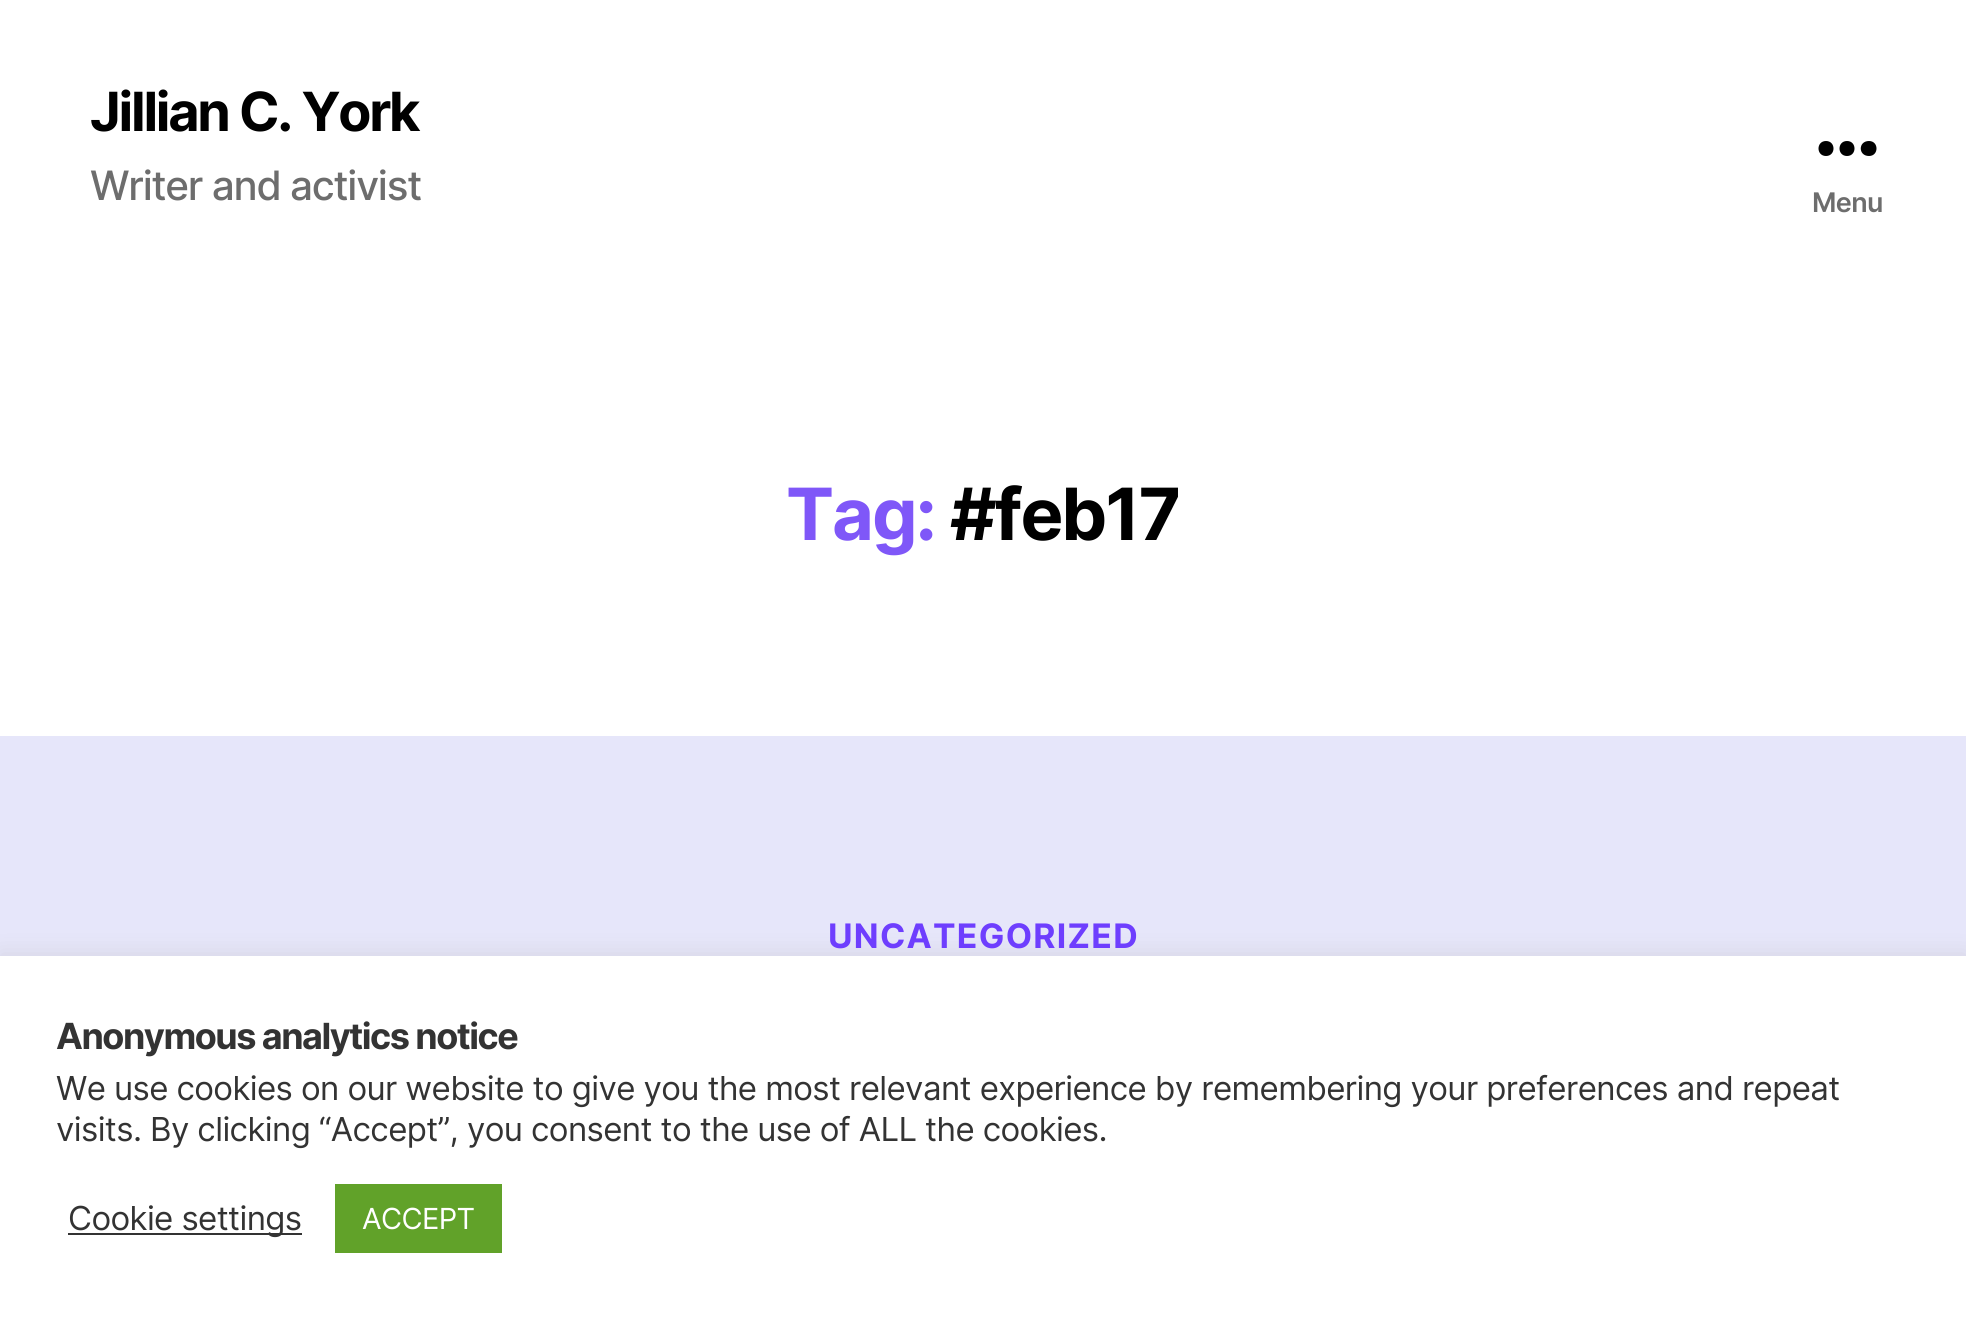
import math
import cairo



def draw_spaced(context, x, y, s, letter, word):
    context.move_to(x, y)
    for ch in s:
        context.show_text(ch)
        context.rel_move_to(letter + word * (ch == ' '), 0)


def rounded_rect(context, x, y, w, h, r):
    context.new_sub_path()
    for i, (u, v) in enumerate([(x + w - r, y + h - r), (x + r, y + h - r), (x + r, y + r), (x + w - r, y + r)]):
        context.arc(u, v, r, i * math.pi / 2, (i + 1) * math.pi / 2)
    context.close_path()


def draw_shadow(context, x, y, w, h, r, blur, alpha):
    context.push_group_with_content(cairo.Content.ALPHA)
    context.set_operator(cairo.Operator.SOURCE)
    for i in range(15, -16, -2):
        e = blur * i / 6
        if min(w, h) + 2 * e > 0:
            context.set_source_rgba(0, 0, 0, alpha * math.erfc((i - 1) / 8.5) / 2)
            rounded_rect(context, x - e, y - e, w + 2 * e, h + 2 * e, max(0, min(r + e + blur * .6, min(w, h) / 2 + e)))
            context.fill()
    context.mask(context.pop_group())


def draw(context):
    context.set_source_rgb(230 / 255, 230 / 255, 250 / 255)
    context.paint()
    context.set_source_rgb(1, 1, 1)
    context.rectangle(0, 0, 1966, 736)
    context.fill()
    context.set_source_rgb(0, 0, 0)
    context.set_fill_rule(cairo.FillRule.EVEN_ODD)
    context.new_path()
    context.move_to(1826, 156)
    context.curve_to(1816, 156, 1816, 141, 1826, 141)
    context.curve_to(1836, 141, 1836, 156, 1826, 156)
    context.close_path()
    context.move_to(1847, 156)
    context.curve_to(1837, 156, 1837, 141, 1847, 141)
    context.curve_to(1857, 141, 1857, 156, 1847, 156)
    context.close_path()
    context.move_to(1869, 156)
    context.curve_to(1858, 156, 1858, 141, 1869, 141)
    context.curve_to(1879, 141, 1879, 156, 1869, 156)
    context.close_path()
    context.fill()
    context.set_source_rgb(172 / 255, 171 / 255, 171 / 255)
    draw_shadow(context, 0, 954, 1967, 365, 0, 11, 0.3)
    context.set_source_rgb(1, 1, 1)
    context.rectangle(0, 956, 1966, 363)
    context.fill()
    context.set_source_rgb(51 / 255, 51 / 255, 51 / 255)
    context.rectangle(68, 1233, 234, 2)
    context.fill()
    context.set_source_rgb(97 / 255, 162 / 255, 41 / 255)
    context.rectangle(335, 1184, 167, 69)
    context.fill()
    context.select_font_face("Inter", cairo.FontSlant.NORMAL, cairo.FontWeight.BOLD)
    context.set_font_size(54)
    context.set_source_rgb(0, 0, 0)
    draw_spaced(context, 90, 131, "Jillian C. York", -2.25, 0)
    context.select_font_face("Inter Medium")
    context.set_font_size(40.5)
    context.set_source_rgb(109 / 255, 109 / 255, 109 / 255)
    draw_spaced(context, 90, 200, "Writer and activist", -1.25, 0)
    context.select_font_face("Inter SemiBold")
    context.set_font_size(27)
    draw_spaced(context, 1812, 212, "Menu", -0.61, 0)
    context.select_font_face("Inter", cairo.FontSlant.NORMAL, cairo.FontWeight.BOLD)
    context.set_font_size(72)
    context.set_source_rgb(127 / 255, 87 / 255, 248 / 255)
    draw_spaced(context, 786, 540, "Tag:", -2, 0)
    context.set_source_rgb(0, 0, 0)
    draw_spaced(context, 950, 540, "#feb17", -2, 0)
    context.set_font_size(33.75)
    context.set_source_rgb(110 / 255, 62 / 255, 254 / 255)
    draw_spaced(context, 828, 948, "UNCATEGORIZED", 1.25, 0)
    context.set_font_size(36)
    context.set_source_rgb(51 / 255, 51 / 255, 51 / 255)
    draw_spaced(context, 56, 1049, "Anonymous analytics notice", -1.5, 0)
    context.select_font_face("Inter")
    context.set_font_size(33)
    draw_spaced(context, 56, 1100, "We use cookies on our website to give you the most relevant experience by remembering your preferences and repeat", -0.61, 0)
    draw_spaced(context, 56, 1141, "visits. By clicking “Accept”, you consent to the use of ALL the cookies.", -0.61, 0)
    draw_spaced(context, 68, 1230, "Cookie settings", -0.61, 0)
    context.set_font_size(29)
    context.set_source_rgb(1, 1, 1)
    draw_spaced(context, 362, 1229, "ACCEPT", -0.61, 0)


surface = cairo.ImageSurface(cairo.Format.RGB24, 1966, 1319)
context = cairo.Context(surface)
options = cairo.FontOptions()
options.set_hint_metrics(cairo.HintMetrics.OFF)
options.set_hint_style(cairo.HintStyle.NONE)
context.set_font_options(options)
context.set_miter_limit(4)
draw(context)
surface.write_to_png("out.png")
